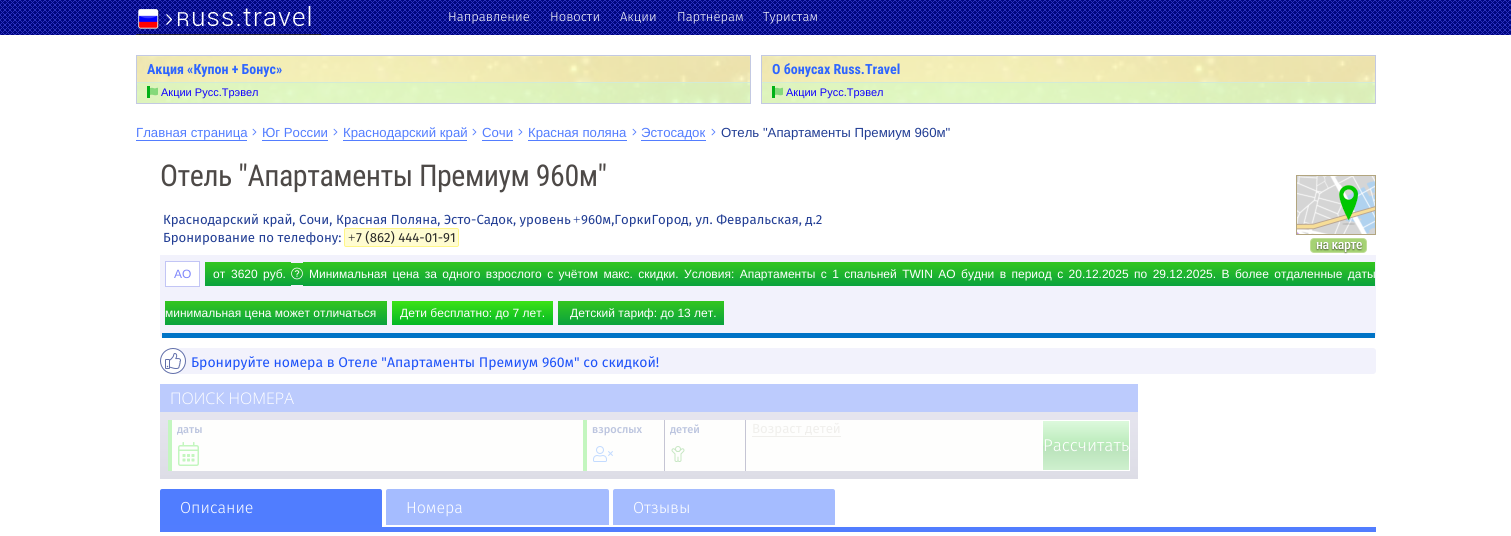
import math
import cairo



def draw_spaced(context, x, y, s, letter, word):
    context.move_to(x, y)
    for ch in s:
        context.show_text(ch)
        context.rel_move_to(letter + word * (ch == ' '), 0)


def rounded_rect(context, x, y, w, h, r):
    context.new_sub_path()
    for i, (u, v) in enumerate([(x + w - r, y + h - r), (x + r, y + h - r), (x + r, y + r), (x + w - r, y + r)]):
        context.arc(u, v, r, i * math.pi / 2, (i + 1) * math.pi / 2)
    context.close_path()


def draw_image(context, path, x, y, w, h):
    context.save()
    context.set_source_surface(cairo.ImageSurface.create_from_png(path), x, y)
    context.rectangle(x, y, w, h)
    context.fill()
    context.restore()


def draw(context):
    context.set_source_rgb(1, 1, 1)
    context.paint()
    draw_image(context, "images/1.png", 0, 0, 1511, 35)
    draw_image(context, "images/2.png", 138, 6, 173, 23)
    context.set_source_rgb(35 / 255, 34 / 255, 47 / 255)
    context.rectangle(136, 34, 185, 1)
    context.fill()
    draw_image(context, "images/3.png", 137, 56, 613, 47)
    context.rectangle(136.5, 55.5, 614, 48)
    context.set_source_rgb(195 / 255, 201 / 255, 226 / 255)
    context.set_line_width(1)
    context.stroke()
    context.set_source_rgb(221 / 255, 221 / 255, 221 / 255)
    context.rectangle(137, 82, 613, 1)
    context.fill()
    context.set_source_rgba(194 / 255, 1, 203 / 255, 0.4)
    context.rectangle(137, 82, 613, 21)
    context.fill()
    context.set_source_rgb(0, 177 / 255, 22 / 255)
    context.rectangle(147, 86, 3, 12)
    context.fill()
    draw_image(context, "images/4.png", 150, 87, 8, 9)
    draw_image(context, "images/3.png", 762, 56, 613, 47)
    context.rectangle(761.5, 55.5, 614, 48)
    context.set_source_rgb(195 / 255, 201 / 255, 226 / 255)
    context.stroke()
    context.set_source_rgb(221 / 255, 221 / 255, 221 / 255)
    context.rectangle(762, 82, 613, 1)
    context.fill()
    context.set_source_rgba(194 / 255, 1, 203 / 255, 0.4)
    context.rectangle(762, 82, 613, 21)
    context.fill()
    context.set_source_rgb(0, 177 / 255, 22 / 255)
    context.rectangle(772, 86, 3, 12)
    context.fill()
    draw_image(context, "images/4.png", 775, 87, 8, 9)
    context.set_source_rgb(83 / 255, 125 / 255, 1)
    context.rectangle(136, 140, 111, 1)
    context.fill()
    draw_image(context, "images/5.png", 252, 128, 5, 8)
    context.rectangle(262, 140, 66, 1)
    context.fill()
    draw_image(context, "images/5.png", 333, 128, 5, 8)
    context.rectangle(343, 140, 124, 1)
    context.fill()
    draw_image(context, "images/5.png", 472, 128, 5, 8)
    context.rectangle(482, 140, 31, 1)
    context.fill()
    draw_image(context, "images/5.png", 518, 128, 5, 8)
    context.rectangle(528, 140, 99, 1)
    context.fill()
    draw_image(context, "images/5.png", 632, 128, 5, 8)
    context.rectangle(641, 140, 65, 1)
    context.fill()
    draw_image(context, "images/5.png", 711, 128, 5, 8)
    draw_image(context, "images/6.png", 1296, 175, 80, 79)
    context.set_source_rgb(1, 252 / 255, 209 / 255)
    rounded_rect(context, 344.5, 228.5, 114, 18, 1.5)
    context.fill_preserve()
    context.set_source_rgb(1, 246 / 255, 135 / 255)
    context.stroke()
    context.set_source_rgb(242 / 255, 242 / 255, 252 / 255)
    context.new_path()
    context.move_to(160, 255)
    context.line_to(1376, 255)
    context.line_to(1376, 335)
    context.curve_to(1376, 336.5, 1374.5, 338, 1373, 338)
    context.line_to(163, 338)
    context.curve_to(161.5, 338, 160, 336.5, 160, 335)
    context.close_path()
    context.fill()
    context.set_source_rgb(0, 115 / 255, 198 / 255)
    context.rectangle(162, 333, 1213, 5)
    context.fill()
    gradient = cairo.LinearGradient(218, 262, 218, 286)
    gradient.add_color_stop_rgba(0, 51 / 255, 198 / 255, 31 / 255, 1)
    gradient.add_color_stop_rgba(1, 10 / 255, 162 / 255, 62 / 255, 1)
    context.set_source(gradient)
    context.rectangle(205, 262, 26, 24)
    context.fill()
    gradient = cairo.LinearGradient(245, 262, 245, 286)
    gradient.add_color_stop_rgba(0, 51 / 255, 198 / 255, 31 / 255, 1)
    gradient.add_color_stop_rgba(1, 10 / 255, 162 / 255, 62 / 255, 1)
    context.set_source(gradient)
    context.rectangle(231, 262, 27, 24)
    context.fill()
    gradient = cairo.LinearGradient(261, 262, 261, 286)
    gradient.add_color_stop_rgba(0, 51 / 255, 198 / 255, 31 / 255, 1)
    gradient.add_color_stop_rgba(1, 10 / 255, 162 / 255, 62 / 255, 1)
    context.set_source(gradient)
    context.rectangle(258, 262, 5, 24)
    context.fill()
    gradient = cairo.LinearGradient(275, 262, 275, 286)
    gradient.add_color_stop_rgba(0, 51 / 255, 198 / 255, 31 / 255, 1)
    gradient.add_color_stop_rgba(1, 10 / 255, 162 / 255, 62 / 255, 1)
    context.set_source(gradient)
    context.rectangle(263, 262, 23, 24)
    context.fill()
    gradient = cairo.LinearGradient(289, 262, 289, 286)
    gradient.add_color_stop_rgba(0, 51 / 255, 198 / 255, 31 / 255, 1)
    gradient.add_color_stop_rgba(1, 10 / 255, 162 / 255, 62 / 255, 1)
    context.set_source(gradient)
    context.rectangle(286, 262, 5, 24)
    context.fill()
    gradient = cairo.LinearGradient(297, 263, 297, 285)
    gradient.add_color_stop_rgba(0, 51 / 255, 198 / 255, 31 / 255, 1)
    gradient.add_color_stop_rgba(1, 10 / 255, 162 / 255, 62 / 255, 1)
    context.set_source(gradient)
    context.rectangle(291, 263, 12, 22)
    context.fill()
    gradient = cairo.LinearGradient(306, 262, 306, 286)
    gradient.add_color_stop_rgba(0, 51 / 255, 198 / 255, 31 / 255, 1)
    gradient.add_color_stop_rgba(1, 10 / 255, 162 / 255, 62 / 255, 1)
    context.set_source(gradient)
    context.rectangle(303, 262, 6, 24)
    context.fill()
    gradient = cairo.LinearGradient(842, 262, 842, 286)
    gradient.add_color_stop_rgba(0, 51 / 255, 198 / 255, 31 / 255, 1)
    gradient.add_color_stop_rgba(1, 10 / 255, 162 / 255, 62 / 255, 1)
    context.set_source(gradient)
    context.rectangle(309, 262, 1066, 24)
    context.fill()
    gradient = cairo.LinearGradient(271, 301, 271, 325)
    gradient.add_color_stop_rgba(0, 51 / 255, 198 / 255, 31 / 255, 1)
    gradient.add_color_stop_rgba(1, 10 / 255, 162 / 255, 62 / 255, 1)
    context.set_source(gradient)
    context.rectangle(165, 301, 211, 24)
    context.fill()
    gradient = cairo.LinearGradient(378, 301, 378, 325)
    gradient.add_color_stop_rgba(0, 51 / 255, 198 / 255, 31 / 255, 1)
    gradient.add_color_stop_rgba(1, 10 / 255, 162 / 255, 62 / 255, 1)
    context.set_source(gradient)
    context.rectangle(376, 301, 3, 24)
    context.fill()
    gradient = cairo.LinearGradient(383, 301, 383, 325)
    gradient.add_color_stop_rgba(0, 51 / 255, 198 / 255, 31 / 255, 1)
    gradient.add_color_stop_rgba(1, 10 / 255, 162 / 255, 62 / 255, 1)
    context.set_source(gradient)
    context.rectangle(379, 301, 8, 24)
    context.fill()
    draw_image(context, "images/7.png", 291, 267, 12, 13)
    context.set_source_rgb(1, 1, 1)
    context.rectangle(165.5, 261.5, 34, 25)
    context.fill_preserve()
    context.set_source_rgb(194 / 255, 197 / 255, 245 / 255)
    context.stroke()
    gradient = cairo.LinearGradient(473, 301, 473, 325)
    gradient.add_color_stop_rgba(0.01, 60 / 255, 226 / 255, 22 / 255, 1)
    gradient.add_color_stop_rgba(1, 3 / 255, 183 / 255, 39 / 255, 1)
    context.set_source(gradient)
    context.rectangle(392, 301, 161, 24)
    context.fill()
    gradient = cairo.LinearGradient(641, 301, 641, 325)
    gradient.add_color_stop_rgba(0, 51 / 255, 198 / 255, 31 / 255, 1)
    gradient.add_color_stop_rgba(1, 10 / 255, 162 / 255, 62 / 255, 1)
    context.set_source(gradient)
    context.rectangle(558, 301, 166, 24)
    context.fill()
    context.set_source_rgb(242 / 255, 242 / 255, 252 / 255)
    rounded_rect(context, 173, 348, 1203, 26, 3)
    context.fill()
    context.set_source_rgb(1, 1, 1)
    context.arc(173, 361, 12.5, 0, 2 * math.pi)
    context.fill_preserve()
    context.set_source_rgb(97 / 255, 111 / 255, 170 / 255)
    context.stroke()
    draw_image(context, "images/8.png", 165, 353, 16, 16)
    gradient = cairo.LinearGradient(649, 384, 649, 479)
    gradient.add_color_stop_rgba(0, 233 / 255, 232 / 255, 242 / 255, 1)
    gradient.add_color_stop_rgba(1, 221 / 255, 221 / 255, 230 / 255, 1)
    context.set_source(gradient)
    context.rectangle(160, 412, 978, 67)
    context.fill()
    context.set_source_rgb(188 / 255, 203 / 255, 253 / 255)
    context.rectangle(160, 384, 978, 28)
    context.fill()
    context.set_source_rgb(254 / 255, 254 / 255, 253 / 255)
    context.rectangle(172, 420, 411, 51)
    context.fill()
    context.set_source_rgb(195 / 255, 246 / 255, 191 / 255)
    context.rectangle(168, 420, 4, 51)
    context.fill()
    draw_image(context, "images/9.png", 178, 442, 21, 24)
    context.set_source_rgb(254 / 255, 254 / 255, 253 / 255)
    context.rectangle(587, 420, 77, 51)
    context.fill()
    context.set_source_rgb(195 / 255, 246 / 255, 191 / 255)
    context.rectangle(583, 420, 4, 51)
    context.fill()
    draw_image(context, "images/10.png", 593, 446, 20, 16)
    context.set_source_rgb(254 / 255, 254 / 255, 253 / 255)
    context.rectangle(665, 420, 80, 51)
    context.fill()
    context.set_source_rgb(197 / 255, 197 / 255, 212 / 255)
    context.rectangle(664, 420, 1, 51)
    context.fill()
    draw_image(context, "images/11.png", 671, 446, 14, 16)
    context.set_source_rgb(254 / 255, 254 / 255, 253 / 255)
    context.rectangle(746, 420, 296, 51)
    context.fill()
    context.set_source_rgb(197 / 255, 197 / 255, 212 / 255)
    context.rectangle(745, 420, 1, 51)
    context.fill()
    context.set_source_rgb(240 / 255, 239 / 255, 236 / 255)
    context.rectangle(752, 436, 89, 1)
    context.fill()
    context.set_source_rgb(1, 1, 1)
    context.rectangle(1042, 420, 88, 51)
    context.fill()
    gradient = cairo.LinearGradient(1086, 421, 1086, 470)
    gradient.add_color_stop_rgba(0, 221 / 255, 249 / 255, 221 / 255, 1)
    gradient.add_color_stop_rgba(0.5, 185 / 255, 234 / 255, 185 / 255, 1)
    gradient.add_color_stop_rgba(0.51, 184 / 255, 226 / 255, 185 / 255, 1)
    gradient.add_color_stop_rgba(1, 206 / 255, 240 / 255, 206 / 255, 1)
    context.set_source(gradient)
    context.rectangle(1043, 421, 86, 49)
    context.fill()
    context.set_source_rgb(81 / 255, 125 / 255, 1)
    context.rectangle(160, 527, 1216, 5)
    context.fill()
    context.set_source_rgb(80 / 255, 125 / 255, 1)
    context.new_path()
    context.move_to(162, 489)
    context.line_to(380, 489)
    context.curve_to(381, 489, 382, 490, 382, 491)
    context.line_to(382, 525)
    context.line_to(160, 525)
    context.line_to(160, 491)
    context.curve_to(160, 490, 161, 489, 162, 489)
    context.close_path()
    context.fill()
    context.set_source_rgb(81 / 255, 125 / 255, 1)
    context.rectangle(160, 525, 222, 2)
    context.fill()
    context.set_source_rgb(165 / 255, 188 / 255, 1)
    context.new_path()
    context.move_to(388, 489)
    context.line_to(607, 489)
    context.curve_to(608, 489, 609, 490, 609, 491)
    context.line_to(609, 525)
    context.line_to(386, 525)
    context.line_to(386, 491)
    context.curve_to(386, 490, 387, 489, 388, 489)
    context.close_path()
    context.fill()
    context.new_path()
    context.move_to(615, 489)
    context.line_to(833, 489)
    context.curve_to(834, 489, 835, 490, 835, 491)
    context.line_to(835, 525)
    context.line_to(613, 525)
    context.line_to(613, 491)
    context.curve_to(613, 490, 614, 489, 615, 489)
    context.close_path()
    context.fill()
    context.select_font_face("Fira Sans Light")
    context.set_font_size(13)
    context.set_source_rgb(1, 1, 1)
    context.move_to(448, 21)
    context.show_text("Направление")
    context.move_to(550, 21)
    context.show_text("Новости")
    context.move_to(620, 21)
    context.show_text("Акции")
    context.move_to(677, 21)
    context.show_text("Партнёрам")
    context.move_to(763, 21)
    context.show_text("Туристам")
    context.select_font_face("Roboto Condensed", cairo.FontSlant.NORMAL, cairo.FontWeight.BOLD)
    context.set_font_size(14)
    context.set_source_rgb(46 / 255, 101 / 255, 1)
    context.move_to(147, 74)
    context.show_text("Акция «Купон + Бонус»")
    context.select_font_face("Liberation Sans")
    context.set_font_size(11)
    context.set_source_rgb(16 / 255, 0, 1)
    context.move_to(161, 96)
    context.show_text("Акции Русс.Трэвел")
    context.select_font_face("Roboto Condensed", cairo.FontSlant.NORMAL, cairo.FontWeight.BOLD)
    context.set_font_size(14)
    context.set_source_rgb(46 / 255, 101 / 255, 1)
    context.move_to(772, 74)
    context.show_text("О бонусах Russ.Travel")
    context.select_font_face("Liberation Sans")
    context.set_font_size(11)
    context.set_source_rgb(16 / 255, 0, 1)
    context.move_to(786, 96)
    context.show_text("Акции Русс.Трэвел")
    context.set_font_size(13.2)
    context.set_source_rgb(83 / 255, 125 / 255, 1)
    context.move_to(136, 137)
    context.show_text("Главная страница")
    context.move_to(262, 137)
    context.show_text("Юг России")
    context.move_to(343, 137)
    context.show_text("Краснодарский край")
    context.move_to(482, 137)
    context.show_text("Сочи")
    context.move_to(528, 137)
    context.show_text("Красная поляна")
    context.move_to(641, 137)
    context.show_text("Эстосадок")
    context.set_source_rgb(33 / 255, 61 / 255, 148 / 255)
    context.move_to(721, 137)
    context.show_text("Отель \"Апартаменты Премиум 960м\"")
    context.select_font_face("Roboto Condensed")
    context.set_font_size(30)
    context.set_source_rgb(77 / 255, 73 / 255, 71 / 255)
    draw_spaced(context, 160, 186, "Отель \"Апартаменты Премиум 960м\"", -0.5, 0)
    context.select_font_face("Fira Sans")
    context.set_font_size(13.2)
    context.set_source_rgb(33 / 255, 61 / 255, 148 / 255)
    context.move_to(163, 224)
    context.show_text("Краснодарский край, Сочи, Красная Поляна, Эсто-Садок, уровень")
    context.select_font_face("Liberation Serif")
    context.move_to(573, 224)
    context.show_text("+")
    context.select_font_face("Fira Sans")
    context.move_to(581, 224)
    context.show_text("960м,ГоркиГород, ул. Февральская, д.2")
    context.move_to(163, 242)
    context.show_text("Бронирование по телефону:")
    context.select_font_face("Liberation Serif")
    context.set_source_rgb(41 / 255, 41 / 255, 41 / 255)
    context.move_to(348, 242)
    context.show_text("+")
    context.select_font_face("Fira Sans")
    context.move_to(356, 242)
    context.show_text("7 (862) 444-01-91")
    context.select_font_face("Liberation Sans")
    context.set_font_size(12)
    context.set_source_rgb(1, 1, 1)
    draw_spaced(context, 309, 278, "Минимальная цена за одного взрослого с учётом макс. скидки. Условия: Апартаменты с 1 спальней TWIN AO будни в период c 20.12.2025 по 29.12.2025. В более отдаленные даты", 0, 2.1)
    context.move_to(165, 317)
    context.show_text("минимальная цена может отличаться")
    context.move_to(213, 278)
    context.show_text("от")
    context.move_to(231, 278)
    context.show_text("3620")
    context.move_to(263, 278)
    context.show_text("руб.")
    context.set_source_rgb(126 / 255, 134 / 255, 251 / 255)
    context.move_to(174, 278)
    context.show_text("AO")
    context.set_source_rgb(1, 1, 1)
    context.move_to(400, 317)
    context.show_text("Дети бесплатно: до 7 лет.")
    context.move_to(570, 317)
    context.show_text("Детский тариф: до 13 лет.")
    context.select_font_face("Fira Sans")
    context.set_font_size(14)
    context.set_source_rgb(30 / 255, 83 / 255, 249 / 255)
    context.move_to(191, 367)
    context.show_text("Бронируйте номера в Отеле \"Апартаменты Премиум 960м\" со скидкой!")
    context.select_font_face("Open Sans Light")
    context.set_font_size(16)
    context.set_source_rgb(1, 1, 1)
    context.move_to(170, 404)
    context.show_text("ПОИСК НОМЕРА")
    context.select_font_face("Fira Sans Medium")
    context.set_font_size(11)
    context.set_source_rgb(188 / 255, 197 / 255, 223 / 255)
    context.move_to(177, 433)
    context.show_text("даты")
    context.move_to(592, 433)
    context.show_text("взрослых")
    context.move_to(670, 433)
    context.show_text("детей")
    context.select_font_face("Fira Sans")
    context.set_font_size(13.2)
    context.set_source_rgb(240 / 255, 239 / 255, 236 / 255)
    context.move_to(752, 433)
    context.show_text("Возраст детей")
    context.select_font_face("Fira Sans Light")
    context.set_font_size(17)
    context.set_source_rgb(1, 1, 1)
    context.move_to(1043, 451)
    context.show_text("Рассчитать")
    context.set_font_size(16)
    context.move_to(180, 513)
    context.show_text("Описание")
    context.move_to(406, 513)
    context.show_text("Номера")
    context.move_to(633, 513)
    context.show_text("Отзывы")


surface = cairo.ImageSurface(cairo.Format.RGB24, 1511, 536)
context = cairo.Context(surface)
options = cairo.FontOptions()
options.set_hint_metrics(cairo.HintMetrics.OFF)
options.set_hint_style(cairo.HintStyle.NONE)
context.set_font_options(options)
context.set_miter_limit(4)
draw(context)
surface.write_to_png("out.png")
